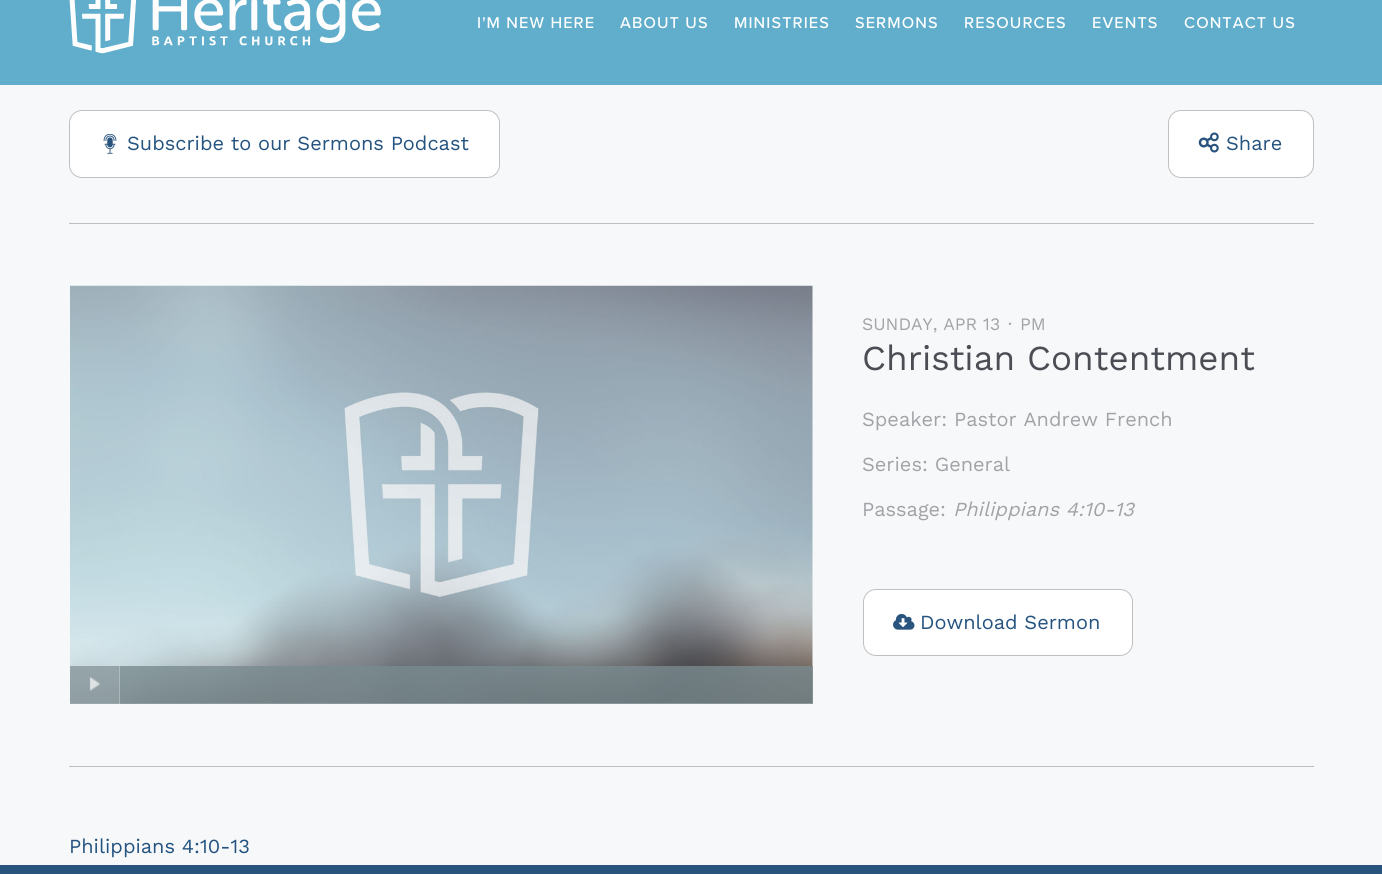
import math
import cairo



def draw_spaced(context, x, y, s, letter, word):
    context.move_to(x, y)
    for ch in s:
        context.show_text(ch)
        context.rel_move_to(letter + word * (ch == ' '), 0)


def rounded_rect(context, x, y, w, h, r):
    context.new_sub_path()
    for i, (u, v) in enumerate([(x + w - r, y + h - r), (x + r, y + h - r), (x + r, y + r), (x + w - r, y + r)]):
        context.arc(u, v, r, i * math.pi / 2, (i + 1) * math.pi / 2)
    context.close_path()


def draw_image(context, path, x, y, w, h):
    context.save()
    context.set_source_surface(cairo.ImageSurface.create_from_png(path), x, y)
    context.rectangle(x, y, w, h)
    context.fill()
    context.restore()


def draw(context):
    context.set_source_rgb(247 / 255, 248 / 255, 249 / 255)
    context.paint()
    context.set_source_rgb(97 / 255, 174 / 255, 204 / 255)
    context.rectangle(0, 0, 1382, 85)
    context.fill()
    draw_image(context, "images/1.png", 69, 0, 312, 54)
    context.set_source_rgb(1, 1, 1)
    rounded_rect(context, 69.5, 110.5, 430, 67, 12.5)
    context.fill_preserve()
    context.set_source_rgb(192 / 255, 192 / 255, 192 / 255)
    context.set_line_width(1)
    context.stroke()
    draw_image(context, "images/2.png", 103, 134, 14, 20)
    context.set_source_rgb(1, 1, 1)
    rounded_rect(context, 1168.5, 110.5, 145, 67, 12.5)
    context.fill_preserve()
    context.set_source_rgb(192 / 255, 192 / 255, 192 / 255)
    context.stroke()
    draw_image(context, "images/3.png", 1198, 132, 21, 21)
    context.set_source_rgb(190 / 255, 190 / 255, 190 / 255)
    context.rectangle(69, 223, 1245, 1)
    context.fill()
    context.rectangle(69, 766, 1245, 1)
    context.fill()
    draw_image(context, "images/4.png", 70, 285, 743, 419)
    context.set_source_rgba(121 / 255, 139 / 255, 144 / 255, 0.8)
    context.rectangle(70, 666, 743, 38)
    context.fill()
    context.set_source_rgba(1, 1, 1, 0.1)
    context.rectangle(70, 666, 50, 38)
    context.fill()
    draw_image(context, "images/5.png", 89, 677, 11, 14)
    context.set_source_rgba(1, 1, 1, 0.25)
    context.rectangle(119, 666, 1, 38)
    context.fill()
    context.set_source_rgb(1, 1, 1)
    rounded_rect(context, 863.5, 589.5, 269, 66, 12.5)
    context.fill_preserve()
    context.set_source_rgb(192 / 255, 192 / 255, 192 / 255)
    context.stroke()
    draw_image(context, "images/6.png", 893, 613, 22, 17)
    context.set_source_rgb(41 / 255, 84 / 255, 126 / 255)
    context.rectangle(0, 865, 1382, 9)
    context.fill()
    context.select_font_face("Proxima Nova Medium")
    context.set_font_size(16.25)
    context.set_source_rgb(1, 1, 1)
    draw_spaced(context, 477, 28, "I'M NEW HERE", 1.1, 0)
    draw_spaced(context, 620, 28, "ABOUT US", 1.1, 0)
    draw_spaced(context, 734, 28, "MINISTRIES", 1.1, 0)
    draw_spaced(context, 855, 28, "SERMONS", 1.1, 0)
    draw_spaced(context, 964, 28, "RESOURCES", 1.1, 0)
    draw_spaced(context, 1092, 28, "EVENTS", 1.1, 0)
    draw_spaced(context, 1184, 28, "CONTACT US", 1.1, 0)
    context.select_font_face("Work Sans")
    context.set_font_size(20)
    context.set_source_rgb(36 / 255, 83 / 255, 127 / 255)
    context.move_to(127, 150)
    context.show_text("Subscribe to our Sermons Podcast")
    context.move_to(1226, 150)
    context.show_text("Share")
    context.set_font_size(17.5)
    context.set_source_rgb(161 / 255, 163 / 255, 167 / 255)
    context.move_to(862, 330)
    context.show_text("SUNDAY, APR 13")
    context.move_to(1008, 330)
    context.show_text("·")
    context.move_to(1020, 330)
    context.show_text("PM")
    context.set_font_size(35)
    context.set_source_rgb(75 / 255, 77 / 255, 84 / 255)
    context.move_to(862, 370)
    context.show_text("Christian Contentment")
    context.set_font_size(20)
    context.set_source_rgb(161 / 255, 163 / 255, 167 / 255)
    context.move_to(862, 426)
    context.show_text("Speaker: Pastor Andrew French")
    context.move_to(862, 471)
    context.show_text("Series: General")
    context.move_to(862, 516)
    context.show_text("Passage:")
    context.select_font_face("Work Sans", cairo.FontSlant.ITALIC)
    context.move_to(953, 516)
    context.show_text("Philippians 4:10-13")
    context.select_font_face("Work Sans")
    context.set_source_rgb(36 / 255, 83 / 255, 127 / 255)
    context.move_to(920, 629)
    context.show_text("Download Sermon")
    context.move_to(69, 853)
    context.show_text("Philippians 4:10-13")


surface = cairo.ImageSurface(cairo.Format.RGB24, 1382, 874)
context = cairo.Context(surface)
options = cairo.FontOptions()
options.set_hint_metrics(cairo.HintMetrics.OFF)
options.set_hint_style(cairo.HintStyle.NONE)
context.set_font_options(options)
context.set_miter_limit(4)
draw(context)
surface.write_to_png("out.png")
